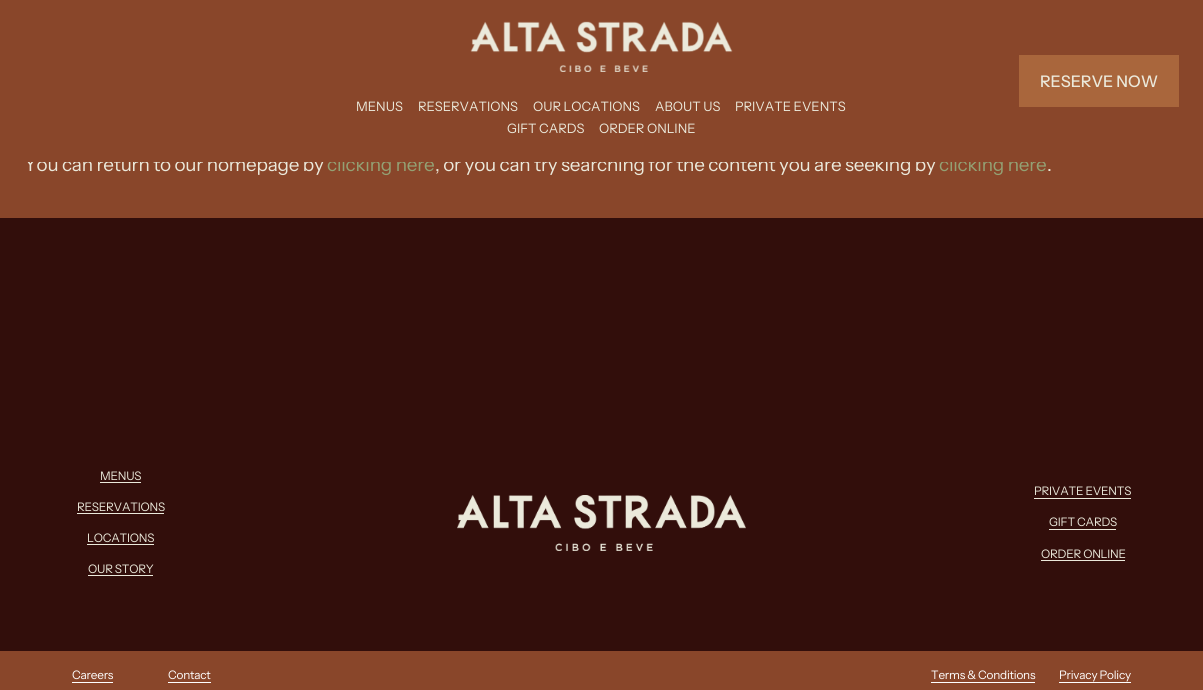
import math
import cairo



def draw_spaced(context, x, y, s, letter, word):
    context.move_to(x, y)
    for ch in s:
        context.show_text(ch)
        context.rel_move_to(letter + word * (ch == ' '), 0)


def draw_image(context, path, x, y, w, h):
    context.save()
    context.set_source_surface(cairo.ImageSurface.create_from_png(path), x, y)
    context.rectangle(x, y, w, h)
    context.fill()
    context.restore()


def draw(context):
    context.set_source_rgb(137 / 255, 70 / 255, 42 / 255)
    context.paint()
    context.set_source_rgb(169 / 255, 102 / 255, 60 / 255)
    context.rectangle(1019, 55, 160, 52)
    context.fill()
    draw_image(context, "images/1.png", 470, 21, 263, 51)
    context.set_source_rgb(50 / 255, 14 / 255, 11 / 255)
    context.rectangle(0, 218, 1203, 433)
    context.fill()
    context.set_source_rgb(235 / 255, 233 / 255, 219 / 255)
    context.rectangle(100, 482, 41, 1)
    context.fill()
    context.rectangle(77, 513, 87, 1)
    context.fill()
    context.rectangle(87, 544, 67, 1)
    context.fill()
    context.rectangle(88, 575, 65, 1)
    context.fill()
    draw_image(context, "images/2.png", 457, 495, 289, 56)
    context.rectangle(1034, 498, 97, 1)
    context.fill()
    context.rectangle(1049, 529, 67, 1)
    context.fill()
    context.rectangle(1041, 560, 84, 1)
    context.fill()
    context.set_source_rgb(1, 1, 1)
    context.rectangle(72, 682, 41, 1)
    context.fill()
    context.rectangle(168, 682, 43, 1)
    context.fill()
    context.rectangle(931, 682, 104, 1)
    context.fill()
    context.rectangle(1059, 682, 72, 1)
    context.fill()
    context.select_font_face("Instrument Sans Medium")
    context.set_font_size(16)
    context.set_source_rgb(235 / 255, 233 / 255, 219 / 255)
    context.move_to(1040, 87)
    context.show_text("RESERVE NOW")
    context.select_font_face("Instrument Sans")
    context.set_font_size(13)
    context.move_to(356, 111)
    context.show_text("MENUS")
    context.move_to(418, 111)
    context.show_text("RESERVATIONS")
    context.move_to(533, 111)
    context.show_text("OUR LOCATIONS")
    context.move_to(655, 111)
    context.show_text("ABOUT US")
    context.move_to(735, 111)
    context.show_text("PRIVATE EVENTS")
    context.move_to(507, 133)
    context.show_text("GIFT CARDS")
    context.move_to(599, 133)
    context.show_text("ORDER ONLINE")
    context.set_font_size(18.9)
    draw_spaced(context, 24, 171, "You can return to our homepage by", -0.2, 0)
    context.set_source_rgb(147 / 255, 161 / 255, 116 / 255)
    draw_spaced(context, 327, 171, "clicking here", -0.2, 0)
    context.set_source_rgb(235 / 255, 233 / 255, 219 / 255)
    draw_spaced(context, 435, 171, ", or you can try searching for the content you are seeking by", -0.2, 0)
    context.set_source_rgb(147 / 255, 161 / 255, 116 / 255)
    draw_spaced(context, 939, 171, "clicking here", -0.2, 0)
    context.set_source_rgb(137 / 255, 70 / 255, 42 / 255)
    context.rectangle(24, 157, 1021, 5)
    context.fill()
    context.set_source_rgb(235 / 255, 233 / 255, 219 / 255)
    draw_spaced(context, 1047, 171, ".", -0.2, 0)
    context.set_font_size(11.75)
    draw_spaced(context, 100, 480, "MENUS", -0.2, 0)
    draw_spaced(context, 77, 511, "RESERVATIONS", -0.2, 0)
    draw_spaced(context, 87, 542, "LOCATIONS", -0.2, 0)
    draw_spaced(context, 88, 573, "OUR STORY", -0.2, 0)
    draw_spaced(context, 1034, 495, "PRIVATE EVENTS", -0.2, 0)
    draw_spaced(context, 1049, 526, "GIFT CARDS", -0.2, 0)
    draw_spaced(context, 1041, 558, "ORDER ONLINE", -0.2, 0)
    context.set_source_rgb(1, 1, 1)
    draw_spaced(context, 72, 679, "Careers", -0.2, 0)
    draw_spaced(context, 168, 679, "Contact", -0.2, 0)
    draw_spaced(context, 931, 679, "Terms & Conditions", -0.2, 0)
    draw_spaced(context, 1059, 679, "Privacy Policy", -0.2, 0)


surface = cairo.ImageSurface(cairo.Format.RGB24, 1203, 690)
context = cairo.Context(surface)
options = cairo.FontOptions()
options.set_hint_metrics(cairo.HintMetrics.OFF)
options.set_hint_style(cairo.HintStyle.NONE)
context.set_font_options(options)
context.set_miter_limit(4)
draw(context)
surface.write_to_png("out.png")
